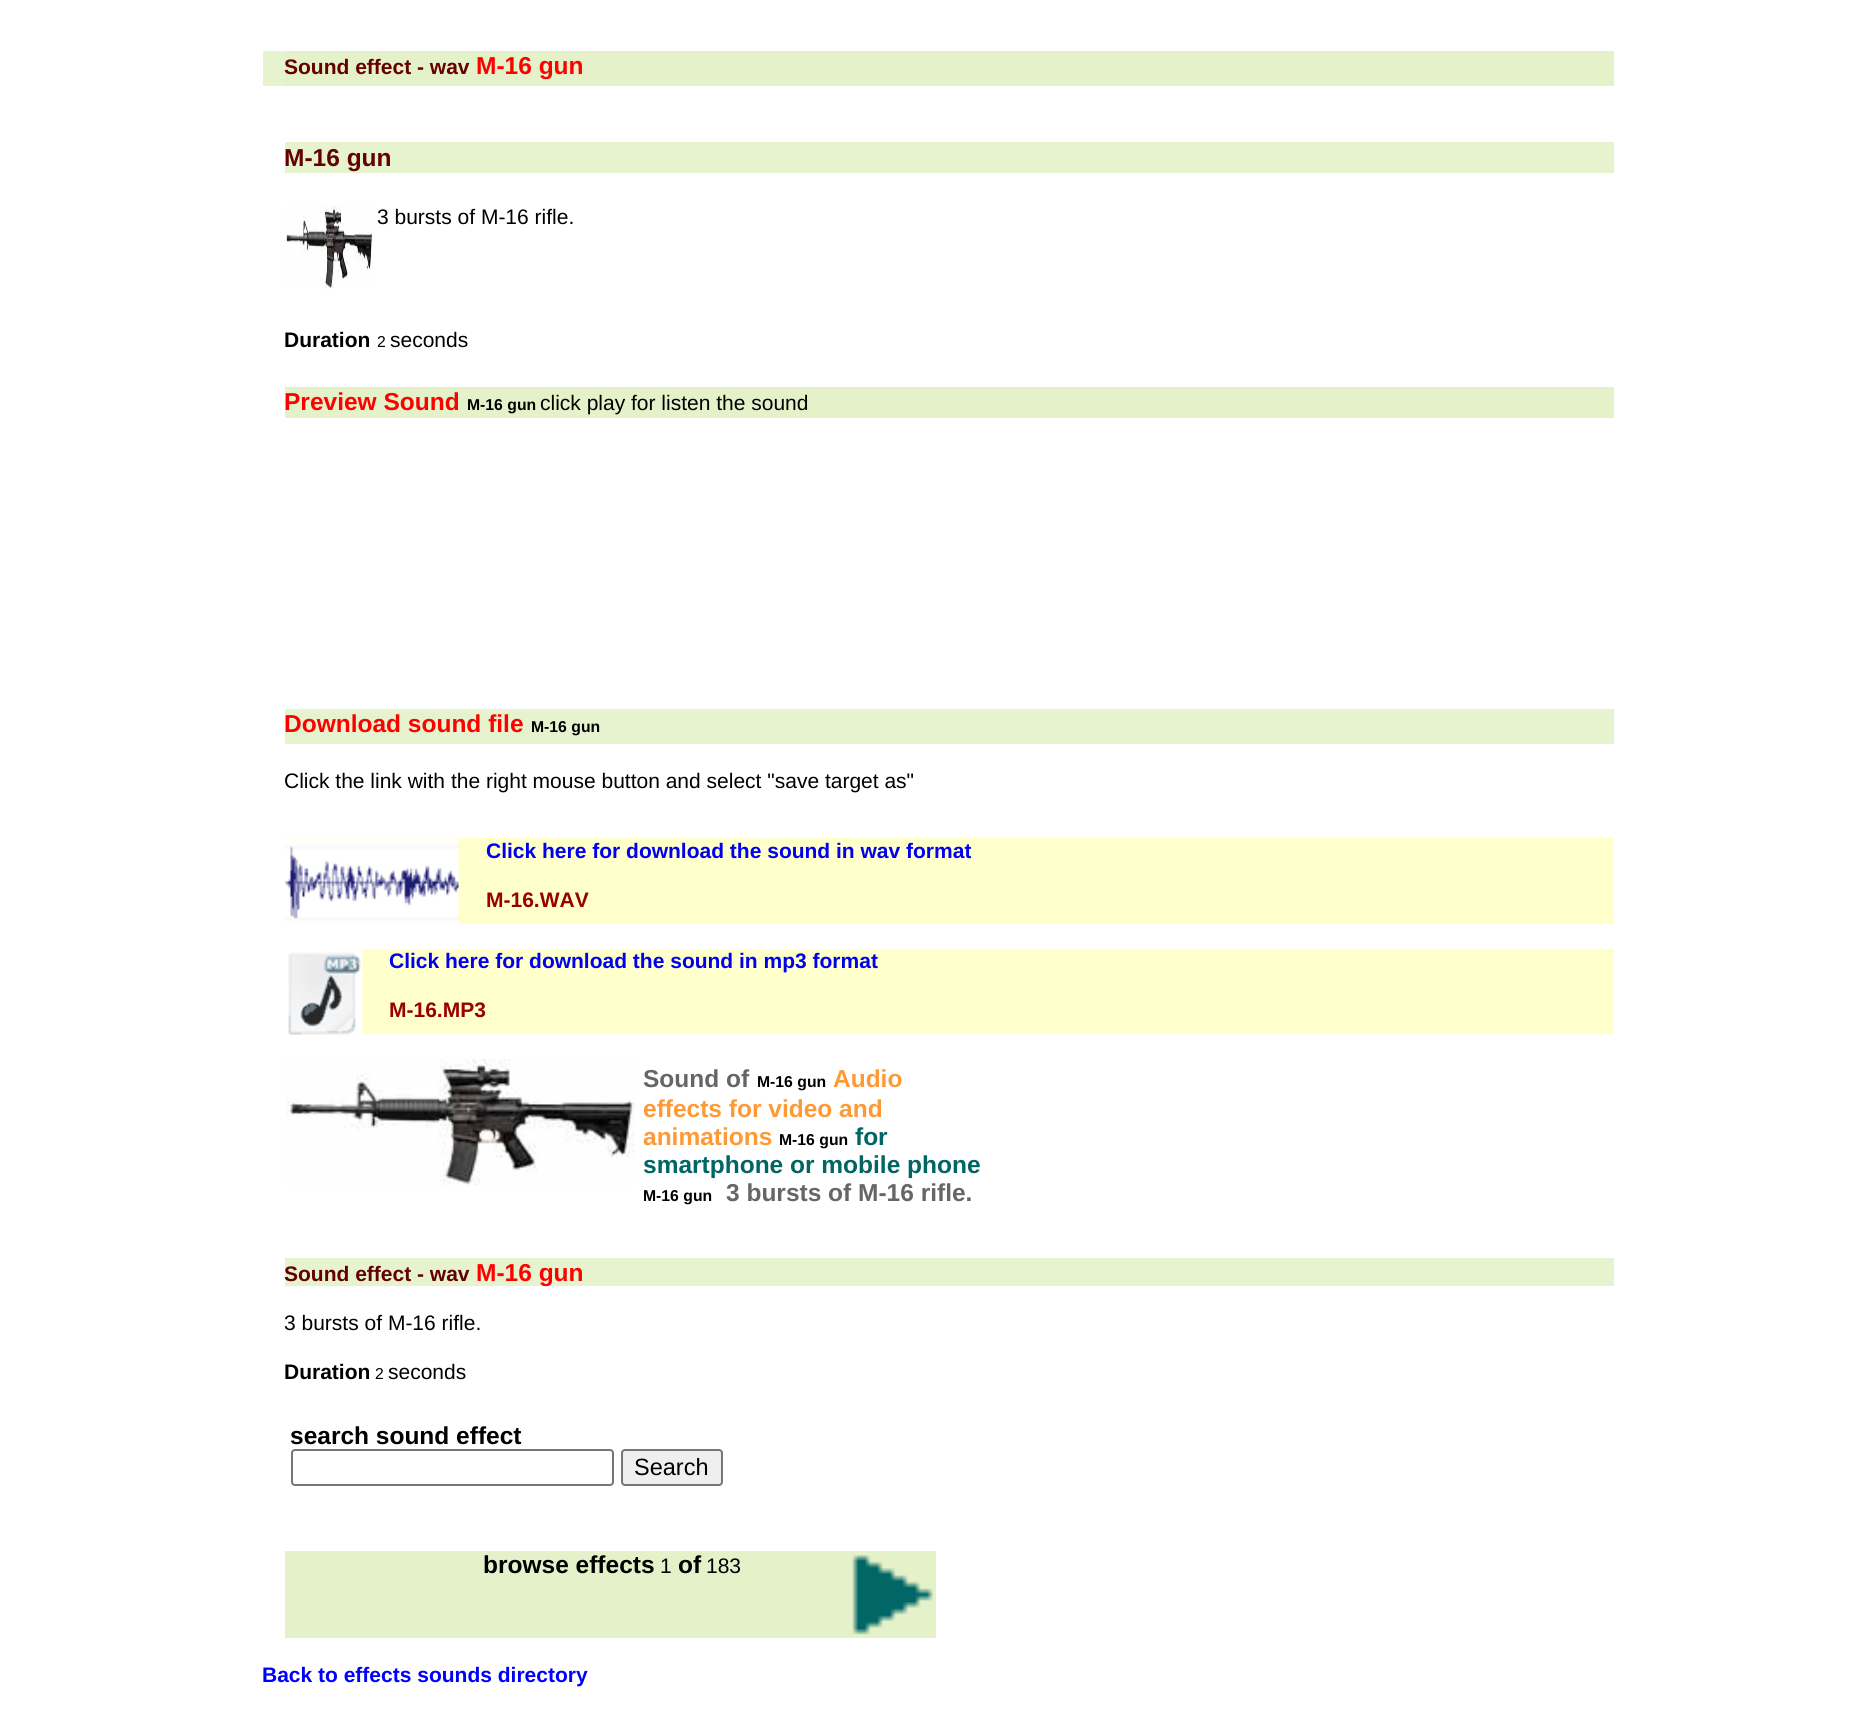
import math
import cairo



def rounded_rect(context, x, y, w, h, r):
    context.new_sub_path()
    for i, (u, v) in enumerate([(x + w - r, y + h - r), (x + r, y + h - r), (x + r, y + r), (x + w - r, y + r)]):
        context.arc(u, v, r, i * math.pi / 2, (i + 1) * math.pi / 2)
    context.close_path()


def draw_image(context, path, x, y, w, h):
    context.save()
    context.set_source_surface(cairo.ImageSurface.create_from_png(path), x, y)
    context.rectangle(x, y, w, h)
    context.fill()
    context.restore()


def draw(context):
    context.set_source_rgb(1, 1, 1)
    context.paint()
    context.set_source_rgb(231 / 255, 243 / 255, 206 / 255)
    context.rectangle(263, 51, 22, 35)
    context.fill()
    context.set_source_rgb(228 / 255, 241 / 255, 201 / 255)
    context.rectangle(285, 51, 1329, 35)
    context.fill()
    context.set_source_rgb(231 / 255, 243 / 255, 206 / 255)
    context.rectangle(285, 142, 1329, 31)
    context.fill()
    draw_image(context, "images/1.png", 286, 205, 87, 84)
    context.set_source_rgb(228 / 255, 241 / 255, 201 / 255)
    context.rectangle(285, 387, 1329, 31)
    context.fill()
    context.set_source_rgb(231 / 255, 243 / 255, 206 / 255)
    context.rectangle(285, 709, 1329, 35)
    context.fill()
    context.set_source_rgb(1, 1, 204 / 255)
    context.rectangle(285, 838, 1329, 86)
    context.fill()
    draw_image(context, "images/2.png", 285, 838, 174, 86)
    context.rectangle(285, 949, 1329, 85)
    context.fill()
    draw_image(context, "images/3.png", 285, 949, 78, 86)
    draw_image(context, "images/4.png", 285, 1059, 351, 127)
    context.set_source_rgb(231 / 255, 243 / 255, 206 / 255)
    context.rectangle(285, 1258, 1329, 28)
    context.fill()
    rounded_rect(context, 292, 1450, 321, 35, 3)
    context.set_source_rgb(118 / 255, 118 / 255, 118 / 255)
    context.stroke()
    context.set_source_rgb(239 / 255, 239 / 255, 239 / 255)
    rounded_rect(context, 622, 1450, 100, 35, 3)
    context.fill_preserve()
    context.set_source_rgb(118 / 255, 118 / 255, 118 / 255)
    context.stroke()
    context.set_source_rgb(228 / 255, 241 / 255, 201 / 255)
    context.rectangle(285, 1551, 651, 87)
    context.fill()
    draw_image(context, "images/5.png", 852, 1555, 81, 80)
    context.select_font_face("Liberation Sans", cairo.FontSlant.NORMAL, cairo.FontWeight.BOLD)
    context.set_font_size(21)
    context.set_source_rgb(99 / 255, 0, 0)
    context.move_to(284, 74)
    context.show_text("Sound effect - wav")
    context.set_font_size(24.5)
    context.set_source_rgb(1, 0, 0)
    context.move_to(476, 74)
    context.show_text("M-16 gun")
    context.set_source_rgb(99 / 255, 0, 0)
    context.move_to(284, 166)
    context.show_text("M-16 gun")
    context.select_font_face("Liberation Sans")
    context.set_font_size(21)
    context.set_source_rgb(0, 0, 0)
    context.move_to(377, 224)
    context.show_text("3 bursts of M-16 rifle.")
    context.select_font_face("Liberation Sans", cairo.FontSlant.NORMAL, cairo.FontWeight.BOLD)
    context.move_to(284, 347)
    context.show_text("Duration")
    context.select_font_face("Liberation Sans")
    context.set_font_size(15.75)
    context.move_to(377, 347)
    context.show_text("2")
    context.set_font_size(21)
    context.move_to(390, 347)
    context.show_text("seconds")
    context.select_font_face("Liberation Sans", cairo.FontSlant.NORMAL, cairo.FontWeight.BOLD)
    context.set_font_size(24.5)
    context.set_source_rgb(1, 0, 0)
    context.move_to(284, 410)
    context.show_text("Preview Sound")
    context.set_font_size(15.75)
    context.set_source_rgb(0, 0, 0)
    context.move_to(467, 410)
    context.show_text("M-16 gun")
    context.select_font_face("Liberation Sans")
    context.set_font_size(21)
    context.move_to(540, 410)
    context.show_text("click play for listen the sound")
    context.select_font_face("Liberation Sans", cairo.FontSlant.NORMAL, cairo.FontWeight.BOLD)
    context.set_font_size(24.5)
    context.set_source_rgb(1, 0, 0)
    context.move_to(284, 732)
    context.show_text("Download sound file")
    context.set_font_size(15.75)
    context.set_source_rgb(0, 0, 0)
    context.move_to(531, 732)
    context.show_text("M-16 gun")
    context.select_font_face("Liberation Sans")
    context.set_font_size(21)
    context.move_to(284, 788)
    context.show_text("Click the link with the right mouse button and select \"save target as\"")
    context.select_font_face("Liberation Sans", cairo.FontSlant.NORMAL, cairo.FontWeight.BOLD)
    context.set_source_rgb(0, 0, 238 / 255)
    context.move_to(486, 858)
    context.show_text("Click here for download the sound in wav format")
    context.set_source_rgb(153 / 255, 0, 0)
    context.move_to(486, 907)
    context.show_text("M-16.WAV")
    context.set_source_rgb(0, 0, 238 / 255)
    context.move_to(389, 968)
    context.show_text("Click here for download the sound in mp3 format")
    context.set_source_rgb(153 / 255, 0, 0)
    context.move_to(389, 1017)
    context.show_text("M-16.MP3")
    context.set_font_size(24.5)
    context.set_source_rgb(102 / 255, 102 / 255, 102 / 255)
    context.move_to(643, 1087)
    context.show_text("Sound of")
    context.set_font_size(15.75)
    context.set_source_rgb(0, 0, 0)
    context.move_to(757, 1087)
    context.show_text("M-16 gun")
    context.set_font_size(24.5)
    context.set_source_rgb(1, 153 / 255, 51 / 255)
    context.move_to(833, 1087)
    context.show_text("Audio")
    context.move_to(643, 1117)
    context.show_text("effects for video and")
    context.move_to(643, 1145)
    context.show_text("animations")
    context.set_font_size(15.75)
    context.set_source_rgb(0, 0, 0)
    context.move_to(779, 1145)
    context.show_text("M-16 gun")
    context.set_font_size(24.5)
    context.set_source_rgb(0, 101 / 255, 99 / 255)
    context.move_to(855, 1145)
    context.show_text("for")
    context.move_to(643, 1173)
    context.show_text("smartphone or mobile phone")
    context.set_font_size(15.75)
    context.set_source_rgb(0, 0, 0)
    context.move_to(643, 1201)
    context.show_text("M-16 gun")
    context.set_font_size(24.5)
    context.set_source_rgb(102 / 255, 102 / 255, 102 / 255)
    context.move_to(726, 1201)
    context.show_text("3 bursts of M-16 rifle.")
    context.set_font_size(21)
    context.set_source_rgb(99 / 255, 0, 0)
    context.move_to(284, 1281)
    context.show_text("Sound effect - wav")
    context.set_font_size(24.5)
    context.set_source_rgb(1, 0, 0)
    context.move_to(476, 1281)
    context.show_text("M-16 gun")
    context.select_font_face("Liberation Sans")
    context.set_font_size(21)
    context.set_source_rgb(0, 0, 0)
    context.move_to(284, 1330)
    context.show_text("3 bursts of M-16 rifle.")
    context.select_font_face("Liberation Sans", cairo.FontSlant.NORMAL, cairo.FontWeight.BOLD)
    context.move_to(284, 1379)
    context.show_text("Duration")
    context.select_font_face("Liberation Sans")
    context.set_font_size(15.75)
    context.move_to(375, 1379)
    context.show_text("2")
    context.set_font_size(21)
    context.move_to(388, 1379)
    context.show_text("seconds")
    context.select_font_face("Liberation Sans", cairo.FontSlant.NORMAL, cairo.FontWeight.BOLD)
    context.set_font_size(24.5)
    context.move_to(290, 1444)
    context.show_text("search sound effect")
    context.select_font_face("Liberation Sans")
    context.set_font_size(23.5)
    context.move_to(634, 1475)
    context.show_text("Search")
    context.select_font_face("Liberation Sans", cairo.FontSlant.NORMAL, cairo.FontWeight.BOLD)
    context.set_font_size(24.5)
    context.move_to(483, 1573)
    context.show_text("browse effects")
    context.select_font_face("Liberation Sans")
    context.set_font_size(21)
    context.move_to(660, 1573)
    context.show_text("1")
    context.select_font_face("Liberation Sans", cairo.FontSlant.NORMAL, cairo.FontWeight.BOLD)
    context.set_font_size(24.5)
    context.move_to(678, 1573)
    context.show_text("of")
    context.select_font_face("Liberation Sans")
    context.set_font_size(21)
    context.move_to(706, 1573)
    context.show_text("183")
    context.select_font_face("Liberation Sans", cairo.FontSlant.NORMAL, cairo.FontWeight.BOLD)
    context.set_source_rgb(0, 0, 1)
    context.move_to(262, 1682)
    context.show_text("Back to effects sounds directory")


surface = cairo.ImageSurface(cairo.Format.RGB24, 1866, 1726)
context = cairo.Context(surface)
options = cairo.FontOptions()
options.set_hint_metrics(cairo.HintMetrics.OFF)
options.set_hint_style(cairo.HintStyle.NONE)
context.set_font_options(options)
context.set_miter_limit(4)
draw(context)
surface.write_to_png("out.png")
